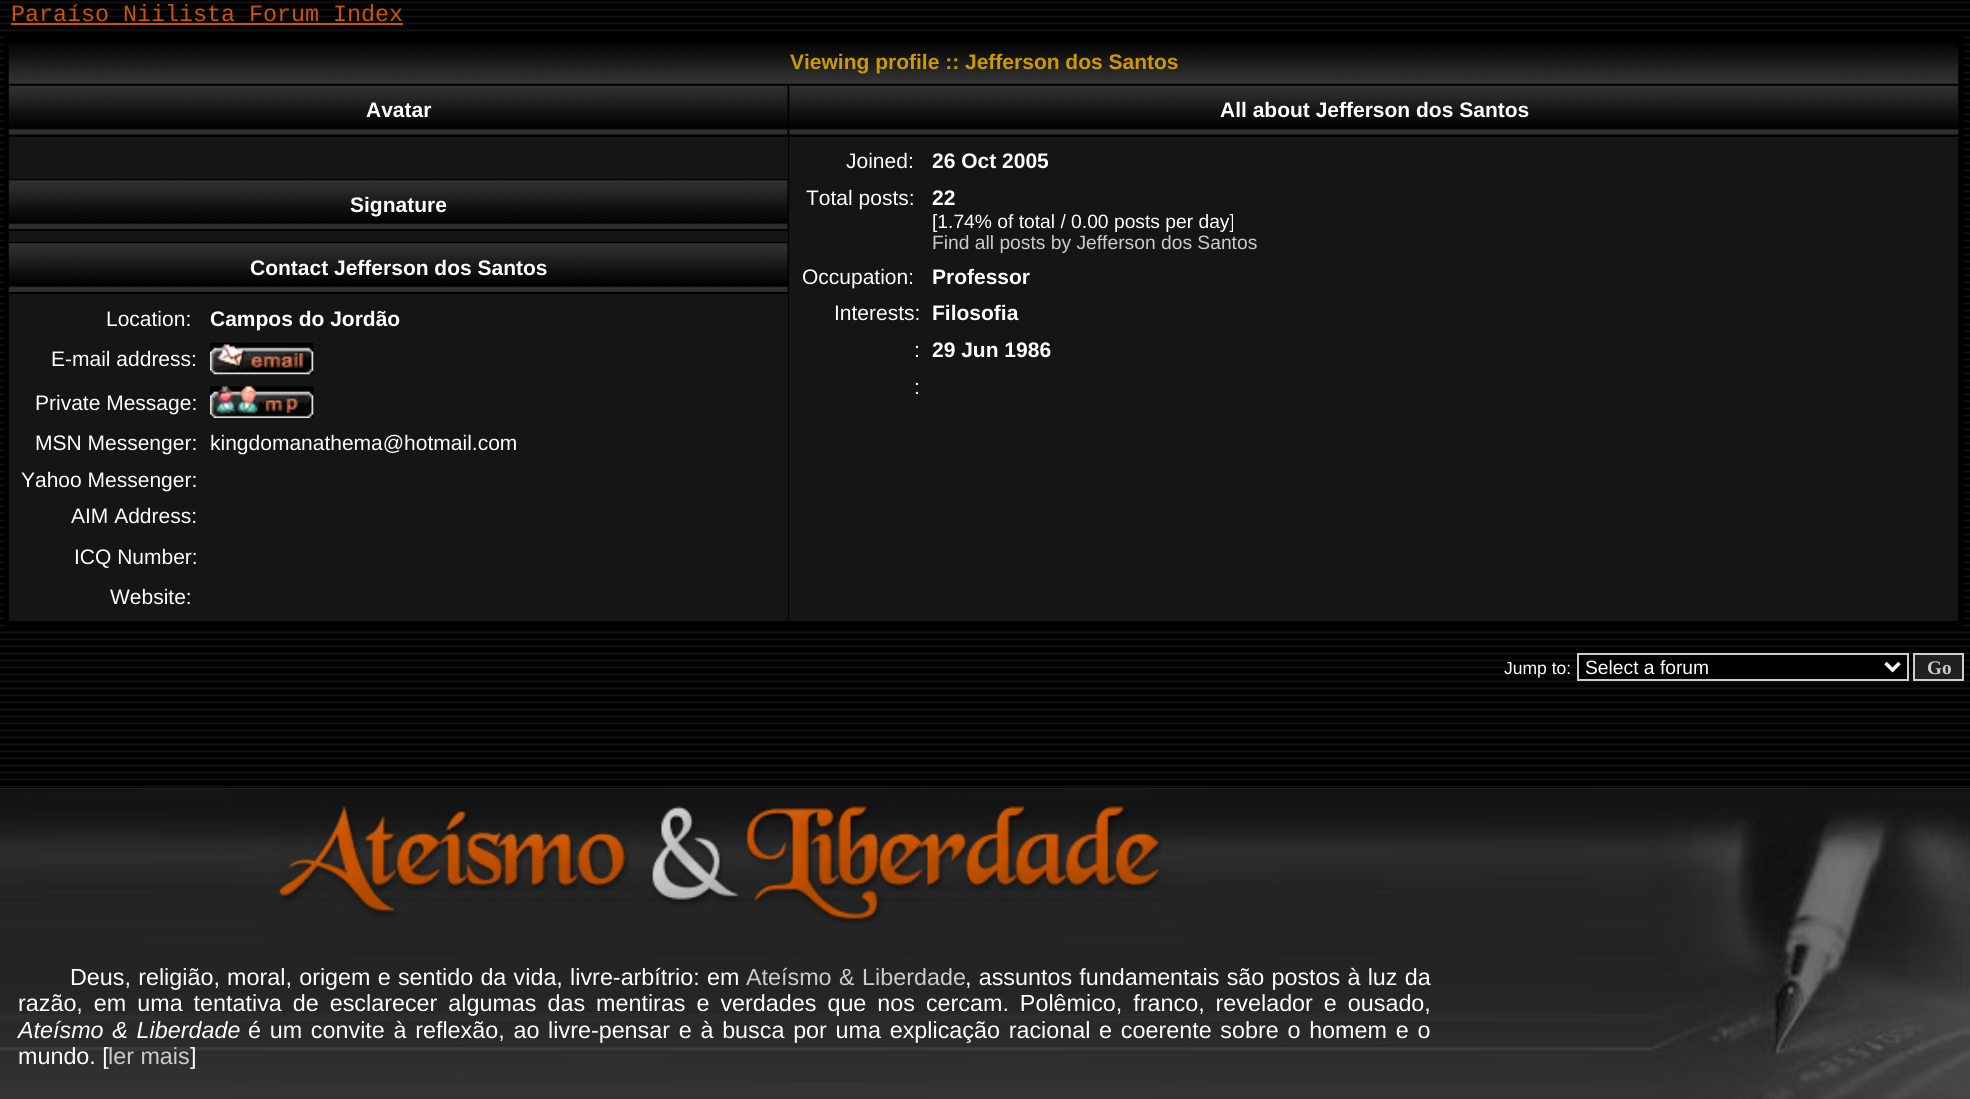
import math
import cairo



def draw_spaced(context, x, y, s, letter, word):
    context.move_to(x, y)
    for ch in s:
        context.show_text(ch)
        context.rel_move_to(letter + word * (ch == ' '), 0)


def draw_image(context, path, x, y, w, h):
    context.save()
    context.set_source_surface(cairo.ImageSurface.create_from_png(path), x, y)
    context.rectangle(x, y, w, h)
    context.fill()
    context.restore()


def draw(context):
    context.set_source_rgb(0, 0, 0)
    context.paint()
    draw_image(context, "images/1.png", 0, 1, 1970, 787)
    context.set_source_rgb(204 / 255, 85 / 255, 0)
    context.rectangle(11, 23, 392, 2)
    context.fill()
    context.set_source_rgb(0, 0, 0)
    context.rectangle(4, 36, 1960, 591)
    context.fill()
    draw_image(context, "images/2.png", 8, 43, 1951, 41)
    draw_image(context, "images/3.png", 8, 85, 780, 50)
    draw_image(context, "images/4.png", 789, 85, 1170, 50)
    draw_image(context, "images/5.png", 8, 180, 780, 49)
    context.set_source_rgb(21 / 255, 21 / 255, 21 / 255)
    context.rectangle(9, 137, 779, 42)
    context.fill()
    context.rectangle(789, 137, 1169, 484)
    context.fill()
    context.rectangle(9, 231, 779, 11)
    context.fill()
    draw_image(context, "images/5.png", 8, 243, 780, 49)
    context.rectangle(9, 294, 779, 327)
    context.fill()
    draw_image(context, "images/6.png", 210, 342, 104, 33)
    draw_image(context, "images/7.png", 210, 386, 104, 32)
    context.set_source_rgb(0, 0, 0)
    context.rectangle(1579, 659, 328, 17)
    context.fill()
    context.rectangle(1578, 654, 330, 26)
    context.set_source_rgb(204 / 255, 204 / 255, 204 / 255)
    context.stroke()
    context.new_path()
    context.move_to(1885.5, 663)
    context.line_to(1892.5, 670)
    context.line_to(1899.5, 663)
    context.set_source_rgb(1, 1, 1)
    context.set_line_width(3.5)
    context.stroke()
    context.set_source_rgb(32 / 255, 32 / 255, 32 / 255)
    context.rectangle(1914, 654, 49, 26)
    context.fill_preserve()
    context.set_source_rgb(204 / 255, 204 / 255, 204 / 255)
    context.set_line_width(2)
    context.stroke()
    context.set_source_rgb(32 / 255, 32 / 255, 32 / 255)
    context.rectangle(0, 788, 1970, 1)
    context.fill()
    draw_image(context, "images/8.png", 0, 789, 1970, 310)
    draw_image(context, "images/9.png", 1653, 808, 317, 291)
    draw_image(context, "images/10.png", 279, 806, 882, 118)
    context.select_font_face("Liberation Mono")
    context.set_font_size(23.33)
    context.set_source_rgb(204 / 255, 85 / 255, 0)
    context.move_to(11, 21)
    context.show_text("Paraíso Niilista Forum Index")
    context.select_font_face("Liberation Sans", cairo.FontSlant.NORMAL, cairo.FontWeight.BOLD)
    context.set_font_size(21)
    context.set_source_rgb(204 / 255, 153 / 255, 0)
    context.move_to(790, 69)
    context.show_text("Viewing profile :: Jefferson dos Santos")
    context.set_source_rgb(1, 1, 1)
    context.move_to(366, 117)
    context.show_text("Avatar")
    context.move_to(1220, 117)
    context.show_text("All about Jefferson dos Santos")
    context.move_to(350, 212)
    context.show_text("Signature")
    context.select_font_face("Liberation Sans")
    context.move_to(846, 168)
    context.show_text("Joined:")
    context.select_font_face("Liberation Sans", cairo.FontSlant.NORMAL, cairo.FontWeight.BOLD)
    context.move_to(932, 168)
    context.show_text("26 Oct 2005")
    context.select_font_face("Liberation Sans")
    context.move_to(806, 205)
    context.show_text("Total posts:")
    context.select_font_face("Liberation Sans", cairo.FontSlant.NORMAL, cairo.FontWeight.BOLD)
    context.move_to(932, 205)
    context.show_text("22")
    context.select_font_face("Liberation Sans")
    context.set_font_size(19.25)
    context.move_to(932, 228)
    context.show_text("[1.74% of total / 0.00 posts per day]")
    context.set_source_rgb(204 / 255, 204 / 255, 204 / 255)
    context.move_to(932, 249)
    context.show_text("Find all posts by Jefferson dos Santos")
    context.set_font_size(21)
    context.set_source_rgb(1, 1, 1)
    context.move_to(802, 284)
    context.show_text("Occupation:")
    context.select_font_face("Liberation Sans", cairo.FontSlant.NORMAL, cairo.FontWeight.BOLD)
    context.move_to(932, 284)
    context.show_text("Professor")
    context.select_font_face("Liberation Sans")
    context.move_to(834, 320)
    context.show_text("Interests:")
    context.select_font_face("Liberation Sans", cairo.FontSlant.NORMAL, cairo.FontWeight.BOLD)
    context.move_to(932, 320)
    context.show_text("Filosofia")
    context.select_font_face("Liberation Sans")
    context.move_to(914, 357)
    context.show_text(":")
    context.select_font_face("Liberation Sans", cairo.FontSlant.NORMAL, cairo.FontWeight.BOLD)
    context.move_to(932, 357)
    context.show_text("29 Jun 1986")
    context.select_font_face("Liberation Sans")
    context.move_to(914, 394)
    context.show_text(":")
    context.select_font_face("Liberation Sans", cairo.FontSlant.NORMAL, cairo.FontWeight.BOLD)
    context.move_to(250, 275)
    context.show_text("Contact Jefferson dos Santos")
    context.select_font_face("Liberation Sans")
    context.move_to(106, 326)
    context.show_text("Location:")
    context.select_font_face("Liberation Sans", cairo.FontSlant.NORMAL, cairo.FontWeight.BOLD)
    context.move_to(210, 326)
    context.show_text("Campos do Jordão")
    context.select_font_face("Liberation Sans")
    context.move_to(51, 366)
    context.show_text("E-mail address:")
    context.move_to(35, 410)
    context.show_text("Private Message:")
    context.move_to(35, 450)
    context.show_text("MSN Messenger:")
    context.move_to(210, 450)
    context.show_text("kingdomanathema@hotmail.com")
    context.move_to(21, 487)
    context.show_text("Yahoo Messenger:")
    context.move_to(71, 523)
    context.show_text("AIM Address:")
    context.move_to(74, 564)
    context.show_text("ICQ Number:")
    context.move_to(110, 604)
    context.show_text("Website:")
    context.set_font_size(17.5)
    context.move_to(1504, 674)
    context.show_text("Jump to:")
    context.set_font_size(19.25)
    context.move_to(1585, 674)
    context.show_text("Select a forum")
    context.select_font_face("Liberation Serif", cairo.FontSlant.NORMAL, cairo.FontWeight.BOLD)
    context.set_source_rgb(204 / 255, 204 / 255, 204 / 255)
    context.move_to(1927, 674)
    context.show_text("Go")
    context.select_font_face("Liberation Sans")
    context.set_font_size(23.33)
    context.set_source_rgb(1, 1, 1)
    draw_spaced(context, 70, 985, "Deus, religião, moral, origem e sentido da vida, livre-arbítrio: em", 0, 0.75)
    context.set_source_rgb(204 / 255, 204 / 255, 204 / 255)
    draw_spaced(context, 746, 985, "Ateísmo & Liberdade", 0, 1)
    context.set_source_rgb(1, 1, 1)
    draw_spaced(context, 965, 985, ", assuntos fundamentais são postos à luz da", 0, 0.75)
    draw_spaced(context, 18, 1011, "razão, em uma tentativa de esclarecer algumas das mentiras e verdades que nos cercam. Polêmico, franco, revelador e ousado,", 0, 4.5)
    context.select_font_face("Liberation Sans", cairo.FontSlant.ITALIC)
    draw_spaced(context, 18, 1038, "Ateísmo & Liberdade", 0, 2.25)
    context.select_font_face("Liberation Sans")
    draw_spaced(context, 248, 1038, "é um convite à reflexão, ao livre-pensar e à busca por uma explicação racional e coerente sobre o homem e o", 0, 2.25)
    context.move_to(18, 1064)
    context.show_text("mundo. [")
    context.set_source_rgb(204 / 255, 204 / 255, 204 / 255)
    context.move_to(108, 1064)
    context.show_text("ler mais")
    context.set_source_rgb(1, 1, 1)
    context.move_to(190, 1064)
    context.show_text("]")


surface = cairo.ImageSurface(cairo.Format.RGB24, 1970, 1099)
context = cairo.Context(surface)
options = cairo.FontOptions()
options.set_hint_metrics(cairo.HintMetrics.OFF)
options.set_hint_style(cairo.HintStyle.NONE)
context.set_font_options(options)
context.set_miter_limit(4)
draw(context)
surface.write_to_png("out.png")
